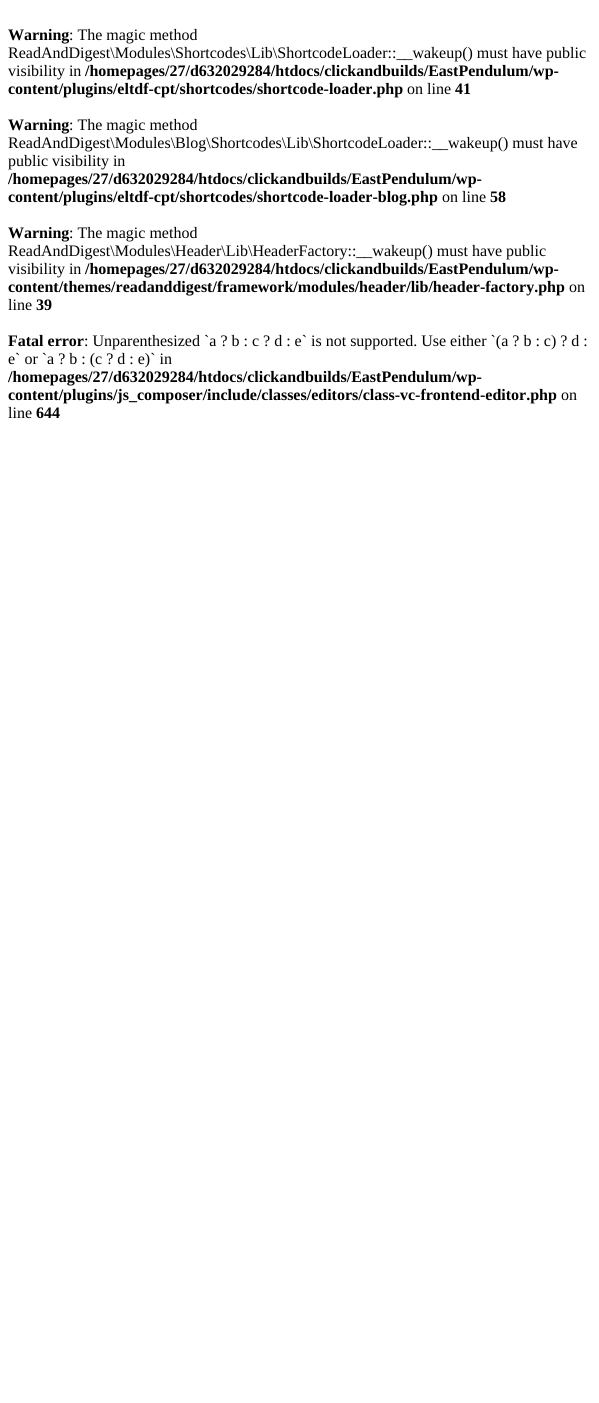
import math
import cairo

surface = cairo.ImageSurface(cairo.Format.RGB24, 599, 1403)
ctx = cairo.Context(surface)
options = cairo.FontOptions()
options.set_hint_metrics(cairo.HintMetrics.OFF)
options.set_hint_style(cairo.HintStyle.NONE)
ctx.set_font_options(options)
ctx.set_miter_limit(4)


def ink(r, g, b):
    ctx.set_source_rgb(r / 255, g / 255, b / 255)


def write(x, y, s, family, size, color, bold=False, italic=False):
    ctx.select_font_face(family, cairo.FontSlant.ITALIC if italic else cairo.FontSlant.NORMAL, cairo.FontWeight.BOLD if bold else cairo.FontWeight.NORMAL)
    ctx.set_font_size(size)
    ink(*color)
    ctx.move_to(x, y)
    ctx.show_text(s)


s1 = dict(family="Liberation Serif", size=16, color=(0, 0, 0), bold=True)
s2 = dict(family="Liberation Serif", size=16, color=(0, 0, 0))

ink(255, 255, 255)
ctx.paint()
write(8, 40, "Warning", **s1)
write(69, 40, ": The magic method", **s2)
write(8, 58, "ReadAndDigest\\Modules\\Shortcodes\\Lib\\ShortcodeLoader::__wakeup() must have public", **s2)
write(8, 76, "visibility in", **s2)
write(85, 76, "/homepages/27/d632029284/htdocs/clickandbuilds/EastPendulum/wp-", **s1)
write(8, 94, "content/plugins/eltdf-cpt/shortcodes/shortcode-loader.php", **s1)
write(407, 94, "on line", **s2)
write(455, 94, "41", **s1)
write(8, 130, "Warning", **s1)
write(69, 130, ": The magic method", **s2)
write(8, 148, "ReadAndDigest\\Modules\\Blog\\Shortcodes\\Lib\\ShortcodeLoader::__wakeup() must have", **s2)
write(8, 166, "public visibility in", **s2)
write(8, 184, "/homepages/27/d632029284/htdocs/clickandbuilds/EastPendulum/wp-", **s1)
write(8, 202, "content/plugins/eltdf-cpt/shortcodes/shortcode-loader-blog.php", **s1)
write(442, 202, "on line", **s2)
write(490, 202, "58", **s1)
write(8, 238, "Warning", **s1)
write(69, 238, ": The magic method", **s2)
write(8, 256, "ReadAndDigest\\Modules\\Header\\Lib\\HeaderFactory::__wakeup() must have public", **s2)
write(8, 274, "visibility in", **s2)
write(85, 274, "/homepages/27/d632029284/htdocs/clickandbuilds/EastPendulum/wp-", **s1)
write(8, 292, "content/themes/readanddigest/framework/modules/header/lib/header-factory.php", **s1)
write(569, 292, "on", **s2)
write(8, 310, "line", **s2)
write(36, 310, "39", **s1)
write(8, 346, "Fatal error", **s1)
write(84, 346, ": Unparenthesized `a ? b : c ? d : e` is not supported. Use either `(a ? b : c) ? d :", **s2)
write(8, 364, "e` or `a ? b : (c ? d : e)` in", **s2)
write(8, 382, "/homepages/27/d632029284/htdocs/clickandbuilds/EastPendulum/wp-", **s1)
write(8, 400, "content/plugins/js_composer/include/classes/editors/class-vc-frontend-editor.php", **s1)
write(561, 400, "on", **s2)
write(8, 418, "line", **s2)
write(36, 418, "644", **s1)
surface.write_to_png("screenshot.png")
